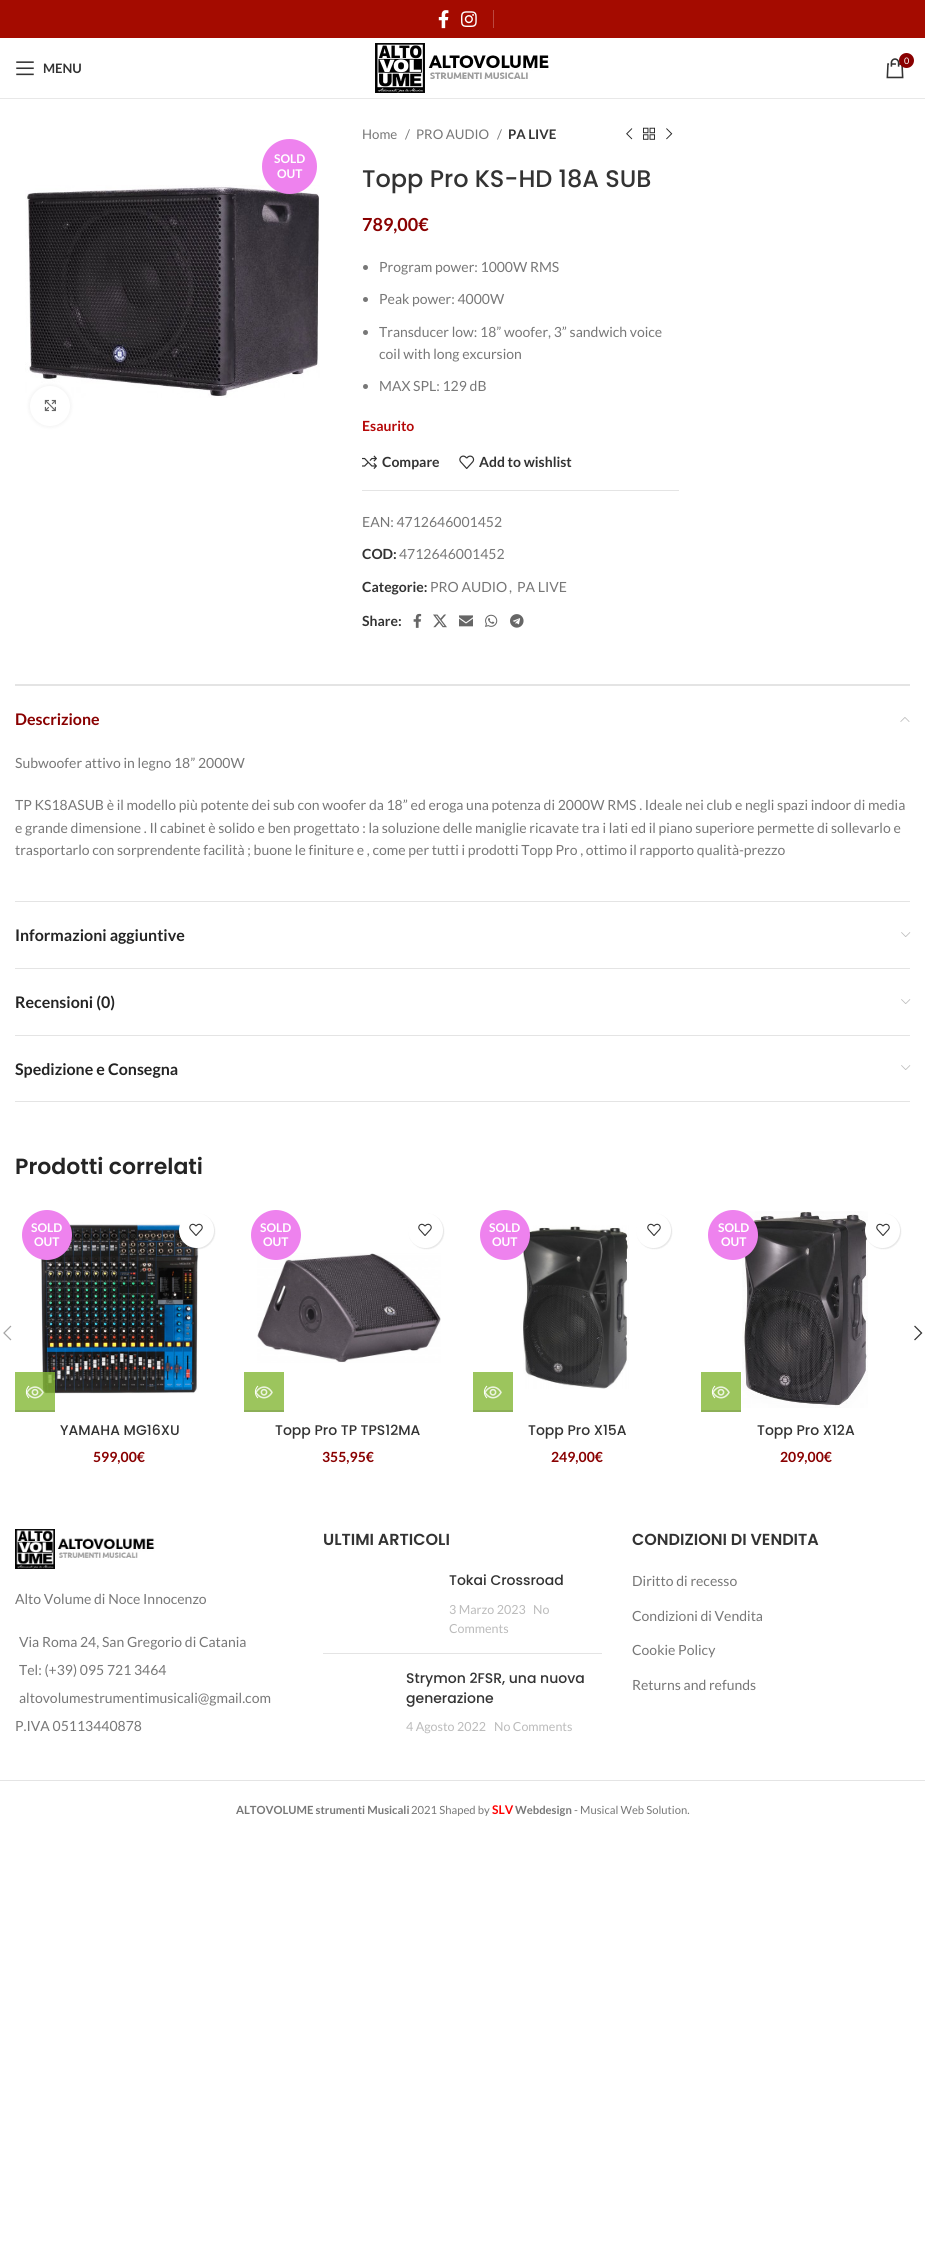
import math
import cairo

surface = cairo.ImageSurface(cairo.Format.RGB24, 925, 2264)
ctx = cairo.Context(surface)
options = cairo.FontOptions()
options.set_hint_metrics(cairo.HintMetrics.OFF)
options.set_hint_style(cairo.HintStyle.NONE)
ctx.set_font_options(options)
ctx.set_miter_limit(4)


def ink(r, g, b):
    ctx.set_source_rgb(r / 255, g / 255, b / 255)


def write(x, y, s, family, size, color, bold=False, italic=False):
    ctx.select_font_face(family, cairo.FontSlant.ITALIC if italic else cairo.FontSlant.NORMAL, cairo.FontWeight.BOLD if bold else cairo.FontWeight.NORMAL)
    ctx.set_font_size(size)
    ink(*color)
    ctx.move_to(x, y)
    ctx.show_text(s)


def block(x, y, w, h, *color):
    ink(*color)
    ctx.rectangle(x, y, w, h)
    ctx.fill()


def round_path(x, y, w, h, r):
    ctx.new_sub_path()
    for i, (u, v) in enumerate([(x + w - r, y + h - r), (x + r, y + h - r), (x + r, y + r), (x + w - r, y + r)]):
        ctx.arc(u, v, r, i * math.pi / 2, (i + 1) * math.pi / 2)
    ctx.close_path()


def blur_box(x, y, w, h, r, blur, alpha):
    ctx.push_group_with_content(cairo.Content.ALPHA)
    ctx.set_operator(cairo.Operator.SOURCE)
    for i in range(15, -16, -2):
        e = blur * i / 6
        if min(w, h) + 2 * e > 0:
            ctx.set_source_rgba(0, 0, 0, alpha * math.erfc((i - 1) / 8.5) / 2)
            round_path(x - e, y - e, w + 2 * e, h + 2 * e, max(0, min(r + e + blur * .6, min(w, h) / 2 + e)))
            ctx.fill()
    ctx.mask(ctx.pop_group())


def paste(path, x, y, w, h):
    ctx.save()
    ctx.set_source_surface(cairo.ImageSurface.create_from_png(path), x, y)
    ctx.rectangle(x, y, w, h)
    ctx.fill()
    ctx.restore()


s1 = dict(family="Lato", size=9, color=(255, 255, 255))
s2 = dict(family="Lato", size=13, color=(51, 51, 51), bold=True)
s3 = dict(family="Lato", size=12, color=(255, 255, 255), bold=True)
s4 = dict(family="Lato", size=13.25, color=(119, 119, 119))
s5 = dict(family="Lato", size=13.25, color=(51, 51, 51), bold=True)
s6 = dict(family="Poppins Medium", size=24, color=(51, 51, 51))
s7 = dict(family="Lato", size=18, color=(137, 0, 0), bold=True)
s8 = dict(family="Lato", size=14, color=(119, 119, 119))
s9 = dict(family="Lato", size=14, color=(181, 8, 8), bold=True)
s10 = dict(family="Lato", size=14, color=(51, 51, 51), bold=True)
s11 = dict(family="Lato", size=16, color=(137, 0, 0), bold=True)
s12 = dict(family="Lato", size=16, color=(36, 36, 36), bold=True)
s13 = dict(family="Poppins SemiBold", size=22, color=(36, 36, 36))
s14 = dict(family="Poppins Medium", size=14, color=(51, 51, 51))
s15 = dict(family="Lato", size=14, color=(137, 0, 0), bold=True)
s16 = dict(family="Poppins SemiBold", size=16, color=(51, 51, 51))
s17 = dict(family="Lato", size=12.5, color=(187, 187, 187))
s18 = dict(family="Lato", size=11.25, color=(119, 119, 119), bold=True)
s19 = dict(family="Lato", size=11.25, color=(119, 119, 119))
s20 = dict(family="Lato", size=12, color=(255, 0, 0), bold=True)

ink(255, 255, 255)
ctx.paint()
block(0, 0, 925, 38, 164, 11, 0)
paste("pic1.png", 438, 10, 11, 19)
paste("pic2.png", 461, 11, 16, 16)
block(493, 10, 1, 18, 187, 72, 64)
block(0, 98, 925, 1, 232, 232, 232)
paste("pic3.png", 375, 43, 174, 50)
paste("pic4.png", 886, 58, 18, 21)
ink(137, 0, 0)
ctx.arc(906.5, 60.5, 7.5, 0, 2 * math.pi)
ctx.fill()
write(904, 64, "0", **s1)
paste("pic5.png", 16, 61, 18, 15)
write(43, 73, "MENU", **s2)
paste("pic6.png", 25, 185, 295, 213)
ink(238, 130, 238)
ctx.arc(289.5, 166.5, 27.5, 0, 2 * math.pi)
ctx.fill()
write(274, 163, "SOLD", **s3)
write(277, 178, "OUT", **s3)
ink(0, 0, 0)
blur_box(30, 386, 40, 40, 20, 2.5, 0.08)
ink(255, 255, 255)
ctx.arc(50, 406, 20, 0, 2 * math.pi)
ctx.fill()
paste("pic7.png", 44, 399, 12, 13)
write(362, 139, "Home", **s4)
write(405, 139, "/", **s4)
write(416, 139, "PRO AUDIO", **s4)
write(497, 139, "/", **s4)
write(508, 139, "PA LIVE", **s5)
paste("pic8.png", 626, 128, 7, 12)
paste("pic9.png", 643, 127, 12, 13)
paste("pic10.png", 666, 128, 7, 12)
write(362, 187, "Topp Pro KS-HD 18A SUB", **s6)
write(362, 231, "789,00€", **s7)
ink(119, 119, 119)
ctx.new_path()
ctx.arc(365.5, 267.5, 2.5, 0, 2 * math.pi)
ctx.fill()
write(379, 272, "Program power: 1000W RMS", **s8)
ctx.new_path()
ctx.arc(365.5, 299.5, 2.5, 0, 2 * math.pi)
ctx.fill()
write(379, 304, "Peak power: 4000W", **s8)
ctx.new_path()
ctx.arc(365.5, 332.5, 2.5, 0, 2 * math.pi)
ctx.fill()
write(379, 337, "Transducer low: 18” woofer, 3” sandwich voice", **s8)
write(379, 359, "coil with long excursion", **s8)
ctx.new_path()
ctx.arc(365.5, 386.5, 2.5, 0, 2 * math.pi)
ctx.fill()
write(379, 391, "MAX SPL: 129 dB", **s8)
write(362, 431, "Esaurito", **s9)
paste("pic11.png", 362, 455, 15, 14)
write(382, 467, "Compare", **s10)
paste("pic12.png", 459, 455, 16, 14)
write(479, 467, "Add to wishlist", **s10)
block(362, 490, 317, 1, 228, 228, 228)
write(362, 527, "EAN: 4712646001452", **s8)
write(362, 559, "COD:", **s10)
write(399, 559, "4712646001452", **s8)
write(362, 592, "Categorie:", **s10)
write(430, 592, "PRO AUDIO", **s8)
write(509, 592, ",", **s8)
write(517, 592, "PA LIVE", **s8)
write(362, 626, "Share:", **s10)
paste("pic13.png", 413, 613, 9, 15)
paste("pic14.png", 433, 614, 14, 14)
paste("pic15.png", 459, 615, 14, 12)
paste("pic16.png", 485, 614, 13, 13)
paste("pic17.png", 510, 614, 14, 14)
block(15, 684, 895, 2, 228, 228, 228)
block(15, 901, 895, 1, 228, 228, 228)
write(15, 725, "Descrizione", **s11)
paste("pic18.png", 900, 717, 10, 5)
write(15, 768, "Subwoofer attivo in legno 18” 2000W", **s8)
write(15, 810, "TP KS18ASUB è il modello più potente dei sub con woofer da 18” ed eroga una potenza di 2000W RMS . Ideale nei club e negli spazi indoor di media", **s8)
write(15, 833, "e grande dimensione . Il cabinet è solido e ben progettato : la soluzione delle maniglie ricavate tra i lati ed il piano superiore permette di sollevarlo e", **s8)
write(15, 855, "trasportarlo con sorprendente facilità ; buone le finiture e , come per tutti i prodotti Topp Pro , ottimo il rapporto qualità-prezzo", **s8)
block(15, 968, 895, 1, 228, 228, 228)
write(15, 941, "Informazioni aggiuntive", **s12)
paste("pic19.png", 901, 932, 10, 5)
block(15, 1035, 895, 1, 228, 228, 228)
write(15, 1008, "Recensioni (0)", **s12)
paste("pic19.png", 901, 999, 10, 5)
block(15, 1101, 895, 1, 228, 228, 228)
write(15, 1075, "Spedizione e Consegna", **s12)
paste("pic19.png", 901, 1065, 10, 5)
write(15, 1174, "Prodotti correlati", **s13)
paste("pic20.png", 40, 1222, 159, 172)
ink(238, 130, 238)
ctx.arc(47, 1235, 25, 0, 2 * math.pi)
ctx.fill()
write(31, 1232, "SOLD", **s3)
write(34, 1246, "OUT", **s3)
ink(0, 0, 0)
blur_box(180, 1214, 35, 35, 17.5, 0.5, 0.1)
ink(255, 255, 255)
ctx.arc(196.5, 1230.5, 17.5, 0, 2 * math.pi)
ctx.fill()
paste("pic21.png", 189, 1223, 14, 13)
ctx.set_source_rgba(0.514, 0.718, 0.208, 0.8)
ctx.rectangle(15, 1372, 40, 38)
ctx.fill()
block(15, 1410, 40, 2, 140, 175, 87)
paste("pic22.png", 26, 1386, 18, 13)
ctx.new_path()
ctx.move_to(29, 1398)
ctx.curve_to(25.5, 1394.5, 25.5, 1389.5, 29, 1386)
ink(255, 255, 255)
ctx.set_line_width(1)
ctx.stroke()
write(60, 1435, "YAMAHA MG16XU", **s14)
write(93, 1462, "599,00€", **s15)
paste("pic23.png", 257, 1253, 184, 110)
ink(238, 130, 238)
ctx.arc(276, 1235, 25, 0, 2 * math.pi)
ctx.fill()
write(260, 1232, "SOLD", **s3)
write(263, 1246, "OUT", **s3)
ink(0, 0, 0)
blur_box(409, 1214, 35, 35, 17.5, 0.5, 0.1)
ink(255, 255, 255)
ctx.arc(425.5, 1230.5, 17.5, 0, 2 * math.pi)
ctx.fill()
paste("pic21.png", 418, 1223, 14, 13)
block(244, 1372, 40, 38, 156, 197, 93)
block(244, 1410, 40, 2, 140, 175, 87)
paste("pic24.png", 255, 1386, 18, 13)
ctx.new_path()
ctx.move_to(258, 1398)
ctx.curve_to(254.5, 1394.5, 254.5, 1389.5, 258, 1386)
ink(255, 255, 255)
ctx.stroke()
write(275, 1435, "Topp Pro TP TPS12MA", **s14)
write(322, 1462, "355,95€", **s15)
paste("pic25.png", 523, 1225, 106, 164)
ink(238, 130, 238)
ctx.arc(505, 1235, 25, 0, 2 * math.pi)
ctx.fill()
write(489, 1232, "SOLD", **s3)
write(492, 1246, "OUT", **s3)
ink(0, 0, 0)
blur_box(637, 1214, 35, 35, 17.5, 0.5, 0.1)
ink(255, 255, 255)
ctx.arc(653.5, 1230.5, 17.5, 0, 2 * math.pi)
ctx.fill()
paste("pic21.png", 647, 1223, 14, 13)
block(473, 1372, 40, 38, 156, 197, 93)
block(473, 1410, 40, 2, 140, 175, 87)
paste("pic24.png", 484, 1386, 18, 13)
ctx.new_path()
ctx.move_to(487, 1398)
ctx.curve_to(483.5, 1394.5, 483.5, 1389.5, 487, 1386)
ink(255, 255, 255)
ctx.stroke()
write(528, 1435, "Topp Pro X15A", **s14)
write(551, 1462, "249,00€", **s15)
paste("pic26.png", 742, 1211, 126, 197)
ink(238, 130, 238)
ctx.arc(733, 1235, 25, 0, 2 * math.pi)
ctx.fill()
write(718, 1232, "SOLD", **s3)
write(721, 1246, "OUT", **s3)
ink(0, 0, 0)
blur_box(866, 1214, 35, 35, 17.5, 0.5, 0.1)
ink(255, 255, 255)
ctx.arc(882.5, 1230.5, 17.5, 0, 2 * math.pi)
ctx.fill()
paste("pic21.png", 876, 1223, 14, 13)
block(701, 1372, 40, 38, 156, 197, 93)
block(701, 1410, 40, 2, 140, 175, 87)
paste("pic24.png", 712, 1386, 18, 13)
ctx.new_path()
ctx.move_to(715, 1398)
ctx.curve_to(711.5, 1394.5, 711.5, 1389.5, 715, 1386)
ink(255, 255, 255)
ctx.stroke()
write(757, 1435, "Topp Pro X12A", **s14)
write(780, 1462, "209,00€", **s15)
paste("pic27.png", 3, 1325, 9, 16)
paste("pic28.png", 914, 1325, 9, 16)
paste("pic29.png", 15, 1529, 140, 40)
write(15, 1604, "Alto Volume di Noce Innocenzo", **s8)
write(19, 1647, "Via Roma 24, San Gregorio di Catania", **s8)
write(19, 1675, "Tel: (+39) 095 721 3464", **s8)
write(19, 1703, "altovolumestrumentimusicali@gmail.com", **s8)
write(15, 1731, "P.IVA 05113440878", **s8)
write(323, 1545, "ULTIMI ARTICOLI", **s16)
block(323, 1653, 279, 1, 228, 228, 228)
write(449, 1585, "Tokai Crossroad", **s14)
write(449, 1614, "3 Marzo 2023", **s17)
write(533, 1614, "No", **s17)
write(449, 1633, "Comments", **s17)
write(406, 1683, "Strymon 2FSR, una nuova", **s14)
write(406, 1703, "generazione", **s14)
write(406, 1731, "4 Agosto 2022", **s17)
write(494, 1731, "No Comments", **s17)
write(632, 1545, "CONDIZIONI DI VENDITA", **s16)
write(632, 1586, "Diritto di recesso", **s8)
write(632, 1621, "Condizioni di Vendita", **s8)
write(632, 1655, "Cookie Policy", **s8)
write(632, 1690, "Returns and refunds", **s8)
block(0, 1780, 925, 1, 228, 228, 228)
write(236, 1814, "ALTOVOLUME strumenti Musicali", **s18)
write(411, 1814, "2021 Shaped by", **s19)
write(492, 1814, "SLV", **s20)
write(515, 1814, "Webdesign", **s18)
write(574, 1814, "- Musical Web Solution.", **s19)
surface.write_to_png("screenshot.png")
